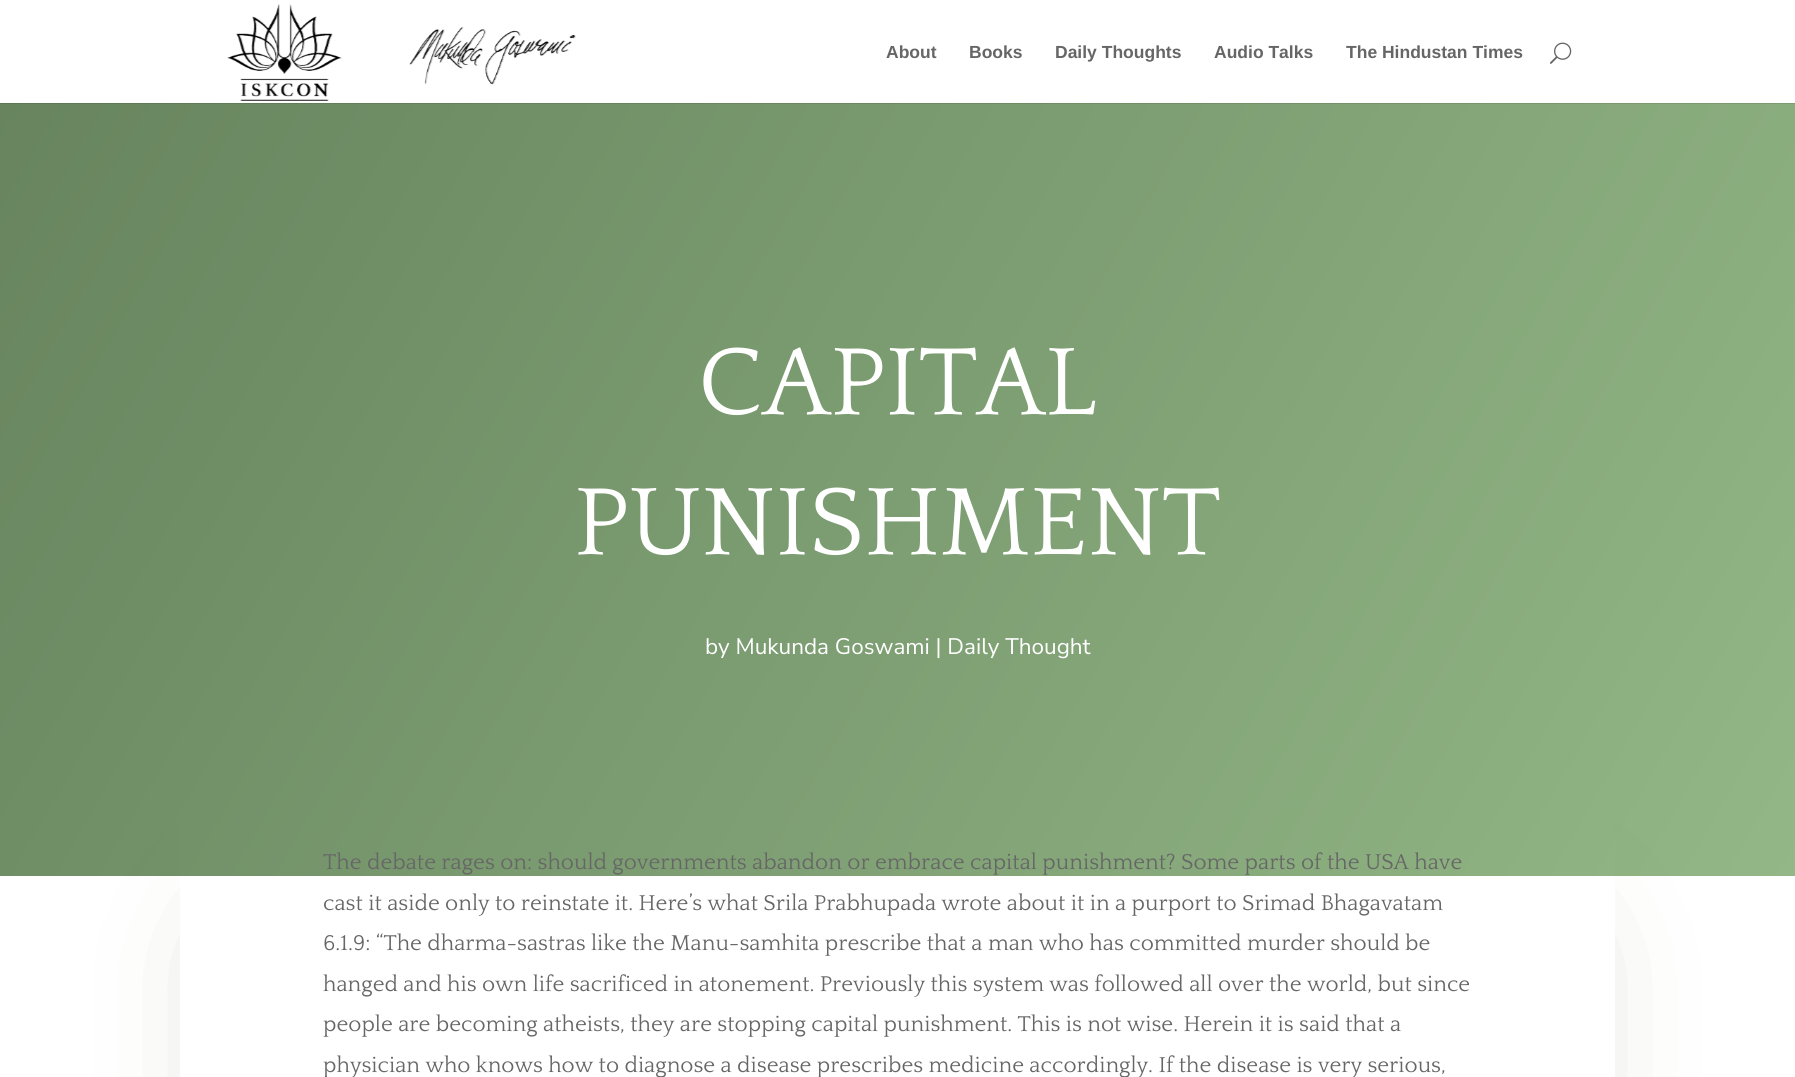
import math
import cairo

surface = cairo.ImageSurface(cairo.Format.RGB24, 1795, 1077)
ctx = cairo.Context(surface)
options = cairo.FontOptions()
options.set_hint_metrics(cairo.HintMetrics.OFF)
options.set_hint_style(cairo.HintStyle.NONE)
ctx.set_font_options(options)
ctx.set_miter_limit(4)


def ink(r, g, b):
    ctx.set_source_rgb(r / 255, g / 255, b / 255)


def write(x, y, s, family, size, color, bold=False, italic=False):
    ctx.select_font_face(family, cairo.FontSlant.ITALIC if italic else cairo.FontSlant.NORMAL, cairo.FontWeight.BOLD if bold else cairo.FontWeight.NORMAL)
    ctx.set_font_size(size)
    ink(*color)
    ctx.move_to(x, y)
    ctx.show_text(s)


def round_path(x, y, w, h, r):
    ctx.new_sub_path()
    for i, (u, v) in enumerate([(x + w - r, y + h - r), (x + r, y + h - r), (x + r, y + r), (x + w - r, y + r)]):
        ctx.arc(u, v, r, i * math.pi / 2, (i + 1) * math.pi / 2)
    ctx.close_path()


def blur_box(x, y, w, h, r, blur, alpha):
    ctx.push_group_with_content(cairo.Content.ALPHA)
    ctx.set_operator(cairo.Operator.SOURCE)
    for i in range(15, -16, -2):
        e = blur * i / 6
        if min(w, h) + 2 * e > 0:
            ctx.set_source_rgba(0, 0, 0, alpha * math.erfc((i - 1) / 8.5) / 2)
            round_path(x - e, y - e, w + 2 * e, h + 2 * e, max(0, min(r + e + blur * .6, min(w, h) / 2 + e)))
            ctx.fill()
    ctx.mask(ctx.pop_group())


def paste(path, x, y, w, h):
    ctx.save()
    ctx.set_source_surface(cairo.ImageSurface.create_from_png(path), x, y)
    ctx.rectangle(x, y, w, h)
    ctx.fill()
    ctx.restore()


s1 = dict(family="Liberation Sans", size=17.5, color=(102, 102, 102), bold=True)
s2 = dict(family="Quattrocento", size=100, color=(255, 255, 255))
s3 = dict(family="Nunito Sans ExtraLight", size=22.5, color=(255, 255, 255))
s4 = dict(family="Quattrocento", size=22.5, color=(102, 102, 102))

ink(255, 255, 255)
ctx.paint()
paste("pic1.png", 227, 4, 349, 97)
write(886, 58, "About", **s1)
write(969, 58, "Books", **s1)
write(1055, 58, "Daily Thoughts", **s1)
write(1214, 58, "Audio Talks", **s1)
write(1346, 58, "The Hindustan Times", **s1)
paste("pic2.png", 1550, 42, 22, 22)
gradient = cairo.LinearGradient(57, 4, 1738, 975)
gradient.add_color_stop_rgba(0, 0.404, 0.518, 0.369, 1)
gradient.add_color_stop_rgba(1, 0.576, 0.718, 0.525, 1)
ctx.set_source(gradient)
ctx.rectangle(0, 104, 1795, 772)
ctx.fill()
gradient = cairo.LinearGradient(57, 4, 1738, 975)
gradient.add_color_stop_rgba(0, 0.365, 0.467, 0.333, 1)
gradient.add_color_stop_rgba(1, 0.518, 0.647, 0.475, 1)
ctx.set_source(gradient)
ctx.rectangle(0, 103, 1795, 1)
ctx.fill()
write(698, 414, "CAPITAL", **s2)
write(574, 554, "PUNISHMENT", **s2)
write(705, 654, "by Mukunda Goswami | Daily Thought", **s3)
ctx.save()
ctx.set_fill_rule(cairo.FillRule.EVEN_ODD)
ctx.new_path()
ctx.move_to(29, 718)
ctx.line_to(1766, 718)
ctx.line_to(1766, 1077)
ctx.line_to(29, 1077)
ctx.close_path()
ctx.move_to(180, 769)
ctx.line_to(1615, 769)
ctx.line_to(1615, 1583)
ctx.line_to(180, 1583)
ctx.close_path()
ctx.clip()
ink(63, 63, 31)
blur_box(255, 944, 1285, 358, 0, 75, 0.3)
ctx.restore()
write(323, 869, "The debate rages on: should governments abandon or embrace capital punishment? Some parts of the USA have", **s4)
write(323, 910, "cast it aside only to reinstate it. Here’s what Srila Prabhupada wrote about it in a purport to Srimad Bhagavatam", **s4)
write(323, 950, "6.1.9: “The dharma-sastras like the Manu-samhita prescribe that a man who has committed murder should be", **s4)
write(323, 991, "hanged and his own life sacrificed in atonement. Previously this system was followed all over the world, but since", **s4)
write(323, 1031, "people are becoming atheists, they are stopping capital punishment. This is not wise. Herein it is said that a", **s4)
write(323, 1072, "physician who knows how to diagnose a disease prescribes medicine accordingly. If the disease is very serious,", **s4)
surface.write_to_png("screenshot.png")
